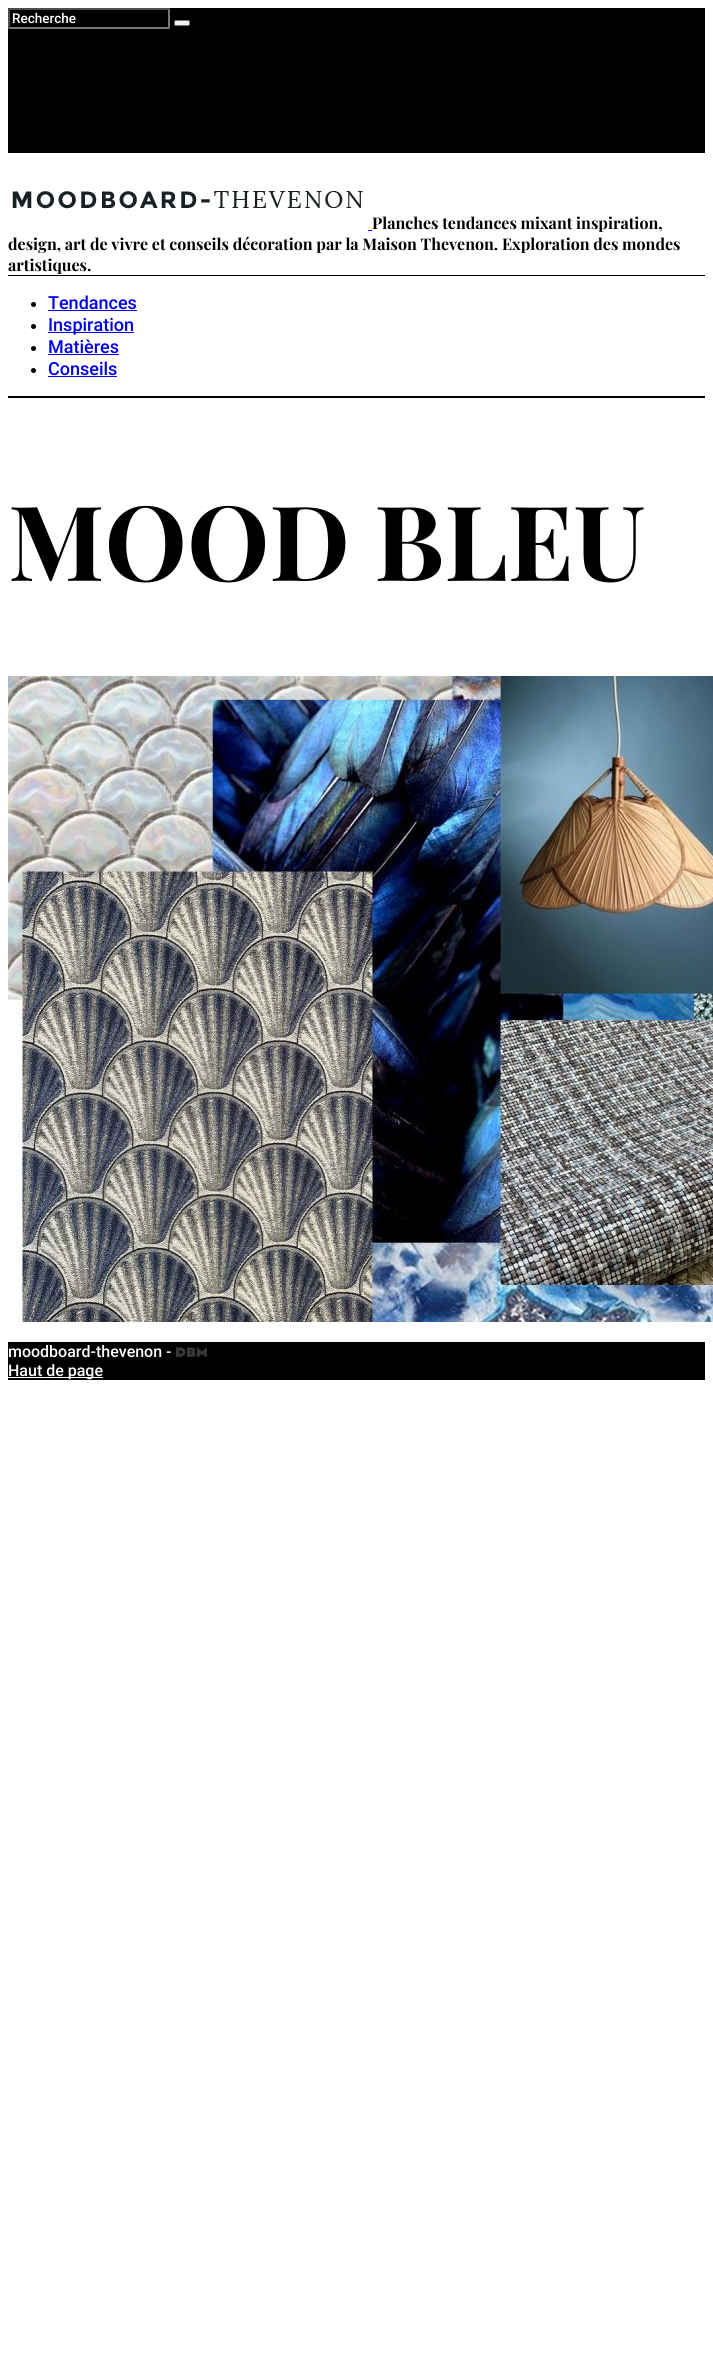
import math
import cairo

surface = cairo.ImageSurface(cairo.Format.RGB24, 713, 2369)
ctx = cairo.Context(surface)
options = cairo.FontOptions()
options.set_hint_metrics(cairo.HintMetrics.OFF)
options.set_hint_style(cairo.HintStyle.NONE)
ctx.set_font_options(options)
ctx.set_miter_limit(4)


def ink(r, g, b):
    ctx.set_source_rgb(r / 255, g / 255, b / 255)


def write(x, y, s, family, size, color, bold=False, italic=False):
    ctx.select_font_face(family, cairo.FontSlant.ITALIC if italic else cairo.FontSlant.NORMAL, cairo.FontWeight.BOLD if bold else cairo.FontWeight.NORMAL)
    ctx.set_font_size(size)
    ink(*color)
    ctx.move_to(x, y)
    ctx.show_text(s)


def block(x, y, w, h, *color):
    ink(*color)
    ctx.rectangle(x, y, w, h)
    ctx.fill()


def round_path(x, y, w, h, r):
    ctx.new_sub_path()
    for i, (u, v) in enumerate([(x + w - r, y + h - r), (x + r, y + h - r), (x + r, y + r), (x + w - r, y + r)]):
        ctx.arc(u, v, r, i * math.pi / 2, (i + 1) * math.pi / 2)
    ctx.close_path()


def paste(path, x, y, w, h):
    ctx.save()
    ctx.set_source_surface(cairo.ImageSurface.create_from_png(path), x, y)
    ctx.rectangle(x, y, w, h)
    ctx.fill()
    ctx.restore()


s1 = dict(family="Roboto Medium", size=13.5, color=(255, 255, 255))
s2 = dict(family="Playfair Display", size=16, color=(0, 0, 0), bold=True)
s3 = dict(family="Roboto Medium", size=18, color=(0, 0, 238))
s4 = dict(family="Playfair Display", size=104, color=(0, 0, 0), bold=True)
s5 = dict(family="Roboto Medium", size=16, color=(255, 255, 255))

ink(255, 255, 255)
ctx.paint()
block(8, 8, 697, 145, 0, 0, 0)
ink(79, 79, 79)
ctx.new_path()
ctx.move_to(8, 8)
ctx.line_to(170, 8)
ctx.line_to(168, 10)
ctx.line_to(10, 10)
ctx.close_path()
ctx.fill()
ink(118, 118, 118)
ctx.new_path()
ctx.move_to(170, 8)
ctx.line_to(170, 29)
ctx.line_to(168, 27)
ctx.line_to(168, 10)
ctx.close_path()
ctx.fill()
ctx.new_path()
ctx.move_to(170, 29)
ctx.line_to(8, 29)
ctx.line_to(10, 27)
ctx.line_to(168, 27)
ctx.close_path()
ctx.fill()
ink(79, 79, 79)
ctx.new_path()
ctx.move_to(8, 29)
ctx.line_to(8, 8)
ctx.line_to(10, 10)
ctx.line_to(10, 27)
ctx.close_path()
ctx.fill()
write(12, 23, "Recherche", **s1)
ink(239, 239, 239)
round_path(174.5, 20.5, 15, 5, 1.5)
ctx.fill_preserve()
ink(118, 118, 118)
ctx.set_line_width(1)
ctx.stroke()
paste("pic1.png", 12, 191, 351, 18)
block(368, 230, 4, 1, 0, 0, 238)
write(372, 229, "Planches tendances mixant inspiration,", **s2)
write(8, 250, "design, art de vivre et conseils décoration par la Maison Thevenon. Exploration des mondes", **s2)
write(8, 271, "artistiques.", **s2)
block(8, 275, 697, 1, 0, 0, 0)
block(8, 396, 697, 2, 0, 0, 0)
ctx.new_path()
ctx.arc(33.5, 304.5, 2.5, 0, 2 * math.pi)
ctx.fill()
write(48, 309, "Tendances", **s3)
block(48, 310, 89, 1, 0, 0, 238)
ink(0, 0, 0)
ctx.new_path()
ctx.arc(33.5, 326.5, 2.5, 0, 2 * math.pi)
ctx.fill()
block(48, 332, 86, 1, 0, 0, 238)
write(48, 331, "Inspiration", **s3)
ink(0, 0, 0)
ctx.new_path()
ctx.arc(33.5, 348.5, 2.5, 0, 2 * math.pi)
ctx.fill()
write(48, 353, "Matières", **s3)
block(48, 354, 71, 1, 0, 0, 238)
ink(0, 0, 0)
ctx.new_path()
ctx.arc(33.5, 370.5, 2.5, 0, 2 * math.pi)
ctx.fill()
write(48, 375, "Conseils", **s3)
block(48, 376, 69, 1, 0, 0, 238)
write(8, 581, "MOOD BLEU", **s4)
paste("pic2.png", 8, 676, 705, 646)
block(8, 1342, 697, 38, 0, 0, 0)
write(8, 1357, "moodboard-thevenon -", **s5)
paste("pic3.png", 176, 1347, 31, 10)
block(8, 1377, 95, 1, 255, 255, 255)
write(8, 1376, "Haut de page", **s5)
surface.write_to_png("screenshot.png")
